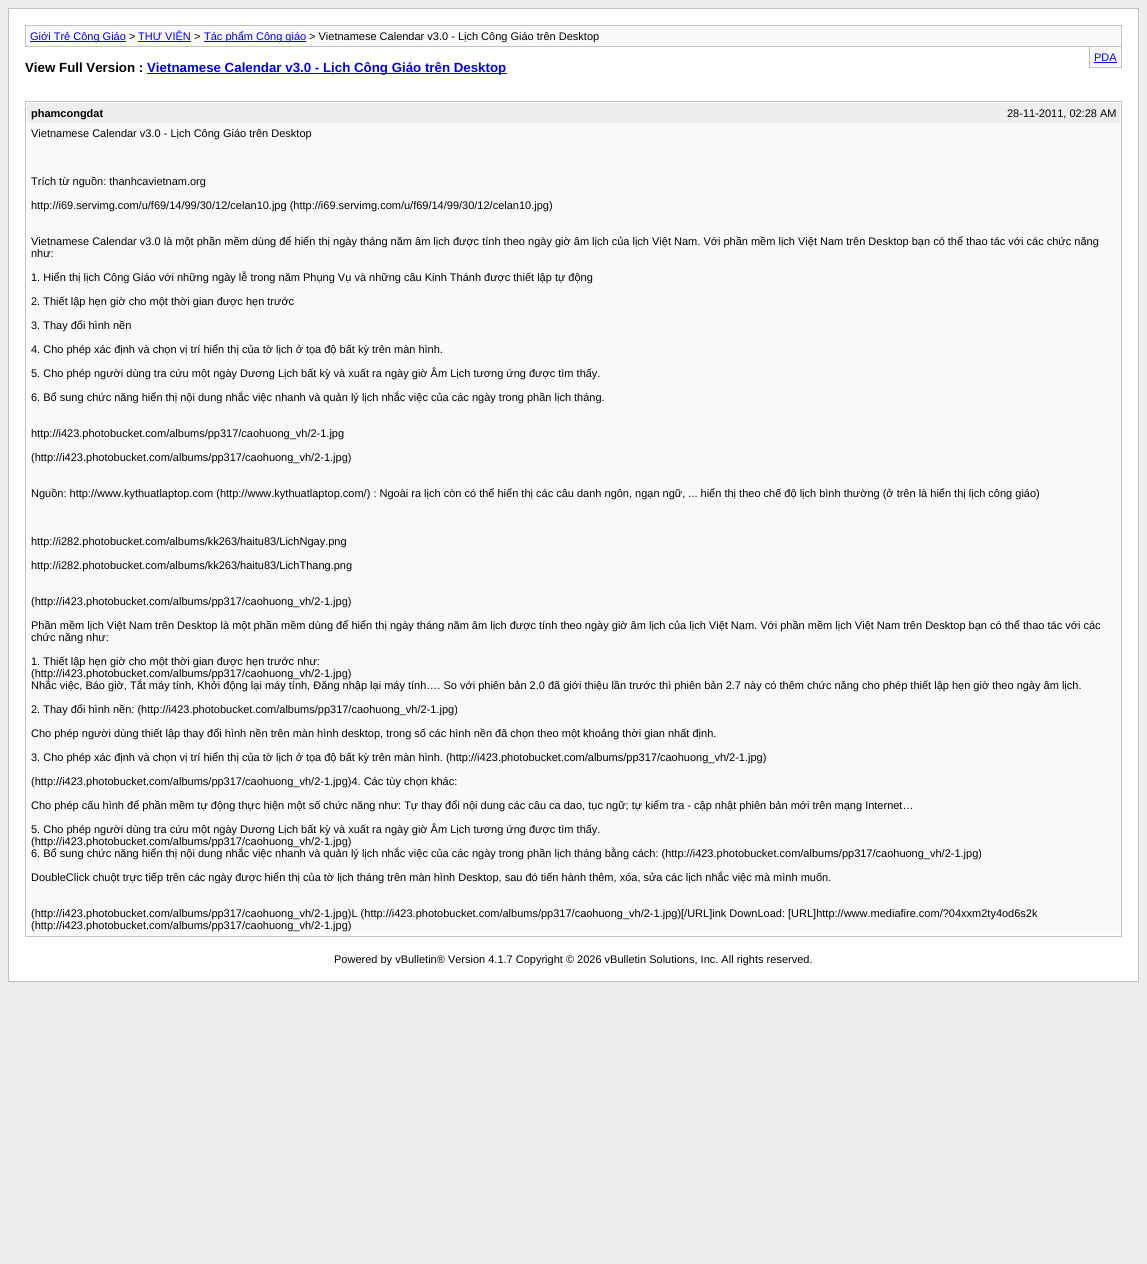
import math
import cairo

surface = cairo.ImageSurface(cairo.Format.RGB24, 1147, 1264)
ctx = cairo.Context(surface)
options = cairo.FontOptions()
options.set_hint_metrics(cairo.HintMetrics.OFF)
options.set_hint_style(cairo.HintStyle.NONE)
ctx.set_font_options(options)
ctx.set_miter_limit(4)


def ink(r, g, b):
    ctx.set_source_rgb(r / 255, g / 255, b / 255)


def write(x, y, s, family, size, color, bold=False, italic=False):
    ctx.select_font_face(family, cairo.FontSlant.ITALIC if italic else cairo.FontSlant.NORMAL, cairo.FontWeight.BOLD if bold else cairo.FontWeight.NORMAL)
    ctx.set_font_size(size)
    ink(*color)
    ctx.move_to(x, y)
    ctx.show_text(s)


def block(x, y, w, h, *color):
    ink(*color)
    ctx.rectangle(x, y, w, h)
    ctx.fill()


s1 = dict(family="Liberation Sans", size=11, color=(0, 0, 238))
s2 = dict(family="Liberation Sans", size=11, color=(0, 0, 0))
s3 = dict(family="Liberation Sans", size=13.3, color=(0, 0, 0), bold=True)
s4 = dict(family="Liberation Sans", size=13.3, color=(0, 0, 238), bold=True)
s5 = dict(family="Liberation Sans", size=11, color=(0, 0, 0), bold=True)

ink(238, 238, 238)
ctx.paint()
ink(255, 255, 255)
ctx.rectangle(8.5, 8.5, 1130, 973)
ctx.fill_preserve()
ink(192, 192, 192)
ctx.set_line_width(1)
ctx.stroke()
ink(249, 249, 249)
ctx.rectangle(25.5, 25.5, 1096, 21)
ctx.fill_preserve()
ink(192, 192, 192)
ctx.stroke()
block(30, 41, 96, 1, 0, 0, 238)
write(30, 40, "Giới Trẻ Công Giáo", **s1)
write(129, 40, ">", **s2)
block(138, 41, 53, 1, 0, 0, 238)
write(138, 40, "THƯ VIỆN", **s1)
write(194, 40, ">", **s2)
block(204, 41, 102, 1, 0, 0, 238)
write(204, 40, "Tác phẩm Công giáo", **s1)
write(309, 40, "> Vietnamese Calendar v3.0 - Lịch Công Giáo trên Desktop", **s2)
block(1090, 47, 31, 20, 249, 249, 249)
block(1121, 47, 1, 21, 192, 192, 192)
block(1089, 67, 33, 1, 192, 192, 192)
block(1089, 47, 1, 21, 192, 192, 192)
write(1094, 61, "PDA", **s1)
block(1094, 62, 23, 1, 0, 0, 238)
write(25, 72, "View Full Version :", **s3)
block(147, 73, 360, 1, 0, 0, 238)
write(147, 72, "Vietnamese Calendar v3.0 - Lịch Công Giáo trên Desktop", **s4)
ctx.rectangle(25.5, 101.5, 1096, 835)
ink(192, 192, 192)
ctx.stroke()
block(27, 103, 1093, 20, 238, 238, 238)
write(31, 117, "phamcongdat", **s5)
write(1007, 117, "28-11-2011, 02:28 AM", **s2)
block(27, 123, 1093, 812, 249, 249, 249)
write(31, 137, "Vietnamese Calendar v3.0 - Lịch Công Giáo trên Desktop", **s2)
write(31, 185, "Trích từ nguồn: thanhcavietnam.org", **s2)
write(31, 209, "http://i69.servimg.com/u/f69/14/99/30/12/celan10.jpg (http://i69.servimg.com/u/f69/14/99/30/12/celan10.jpg)", **s2)
write(31, 245, "Vietnamese Calendar v3.0 là một phần mềm dùng để hiển thị ngày tháng năm âm lịch được tính theo ngày giờ âm lịch của lịch Việt Nam. Với phần mềm lịch Việt Nam trên Desktop bạn có thể thao tác với các chức năng", **s2)
write(31, 257, "như:", **s2)
write(31, 281, "1. Hiển thị lịch Công Giáo với những ngày lễ trong năm Phụng Vụ và những câu Kinh Thánh được thiết lập tự động", **s2)
write(31, 305, "2. Thiết lập hẹn giờ cho một thời gian được hẹn trước", **s2)
write(31, 329, "3. Thay đổi hình nền", **s2)
write(31, 353, "4. Cho phép xác định và chọn vị trí hiển thị của tờ lịch ở tọa độ bất kỳ trên màn hình.", **s2)
write(31, 377, "5. Cho phép người dùng tra cứu một ngày Dương Lịch bất kỳ và xuất ra ngày giờ Âm Lịch tương ứng được tìm thấy.", **s2)
write(31, 401, "6. Bổ sung chức năng hiển thị nội dung nhắc việc nhanh và quản lý lịch nhắc việc của các ngày trong phần lịch tháng.", **s2)
write(31, 437, "http://i423.photobucket.com/albums/pp317/caohuong_vh/2-1.jpg", **s2)
write(31, 461, "(http://i423.photobucket.com/albums/pp317/caohuong_vh/2-1.jpg)", **s2)
write(31, 497, "Nguồn: http://www.kythuatlaptop.com (http://www.kythuatlaptop.com/) : Ngoài ra lịch còn có thể hiển thị các câu danh ngôn, ngạn ngữ, ... hiển thị theo chế độ lịch bình thường (ở trên là hiển thị lịch công giáo)", **s2)
write(31, 545, "http://i282.photobucket.com/albums/kk263/haitu83/LichNgay.png", **s2)
write(31, 569, "http://i282.photobucket.com/albums/kk263/haitu83/LichThang.png", **s2)
write(31, 605, "(http://i423.photobucket.com/albums/pp317/caohuong_vh/2-1.jpg)", **s2)
write(31, 629, "Phần mềm lịch Việt Nam trên Desktop là một phần mềm dùng để hiển thị ngày tháng năm âm lịch được tính theo ngày giờ âm lịch của lịch Việt Nam. Với phần mềm lịch Việt Nam trên Desktop bạn có thể thao tác với các", **s2)
write(31, 641, "chức năng như:", **s2)
write(31, 665, "1. Thiết lập hẹn giờ cho một thời gian được hẹn trước như:", **s2)
write(31, 677, "(http://i423.photobucket.com/albums/pp317/caohuong_vh/2-1.jpg)", **s2)
write(31, 689, "Nhắc việc, Báo giờ, Tắt máy tính, Khởi động lại máy tính, Đăng nhập lại máy tính…. So với phiên bản 2.0 đã giới thiệu lần trước thì phiên bản 2.7 này có thêm chức năng cho phép thiết lập hẹn giờ theo ngày âm lịch.", **s2)
write(31, 713, "2. Thay đổi hình nền: (http://i423.photobucket.com/albums/pp317/caohuong_vh/2-1.jpg)", **s2)
write(31, 737, "Cho phép người dùng thiết lập thay đổi hình nền trên màn hình desktop, trong số các hình nền đã chọn theo một khoảng thời gian nhất định.", **s2)
write(31, 761, "3. Cho phép xác định và chọn vị trí hiển thị của tờ lịch ở tọa độ bất kỳ trên màn hình. (http://i423.photobucket.com/albums/pp317/caohuong_vh/2-1.jpg)", **s2)
write(31, 785, "(http://i423.photobucket.com/albums/pp317/caohuong_vh/2-1.jpg)4. Các tùy chọn khác:", **s2)
write(31, 809, "Cho phép cấu hình để phần mềm tự động thực hiện một số chức năng như: Tự thay đổi nội dung các câu ca dao, tục ngữ; tự kiểm tra - cập nhật phiên bản mới trên mạng Internet…", **s2)
write(31, 833, "5. Cho phép người dùng tra cứu một ngày Dương Lịch bất kỳ và xuất ra ngày giờ Âm Lịch tương ứng được tìm thấy.", **s2)
write(31, 845, "(http://i423.photobucket.com/albums/pp317/caohuong_vh/2-1.jpg)", **s2)
write(31, 857, "6. Bổ sung chức năng hiển thị nội dung nhắc việc nhanh và quản lý lịch nhắc việc của các ngày trong phần lịch tháng bằng cách: (http://i423.photobucket.com/albums/pp317/caohuong_vh/2-1.jpg)", **s2)
write(31, 881, "DoubleClick chuột trực tiếp trên các ngày được hiển thị của tờ lịch tháng trên màn hình Desktop, sau đó tiến hành thêm, xóa, sửa các lịch nhắc việc mà mình muốn.", **s2)
write(31, 917, "(http://i423.photobucket.com/albums/pp317/caohuong_vh/2-1.jpg)L (http://i423.photobucket.com/albums/pp317/caohuong_vh/2-1.jpg)[/URL]ink DownLoad: [URL]http://www.mediafire.com/?04xxm2ty4od6s2k", **s2)
write(31, 929, "(http://i423.photobucket.com/albums/pp317/caohuong_vh/2-1.jpg)", **s2)
write(334, 963, "Powered by vBulletin® Version 4.1.7 Copyright © 2026 vBulletin Solutions, Inc. All rights reserved.", **s2)
surface.write_to_png("screenshot.png")
